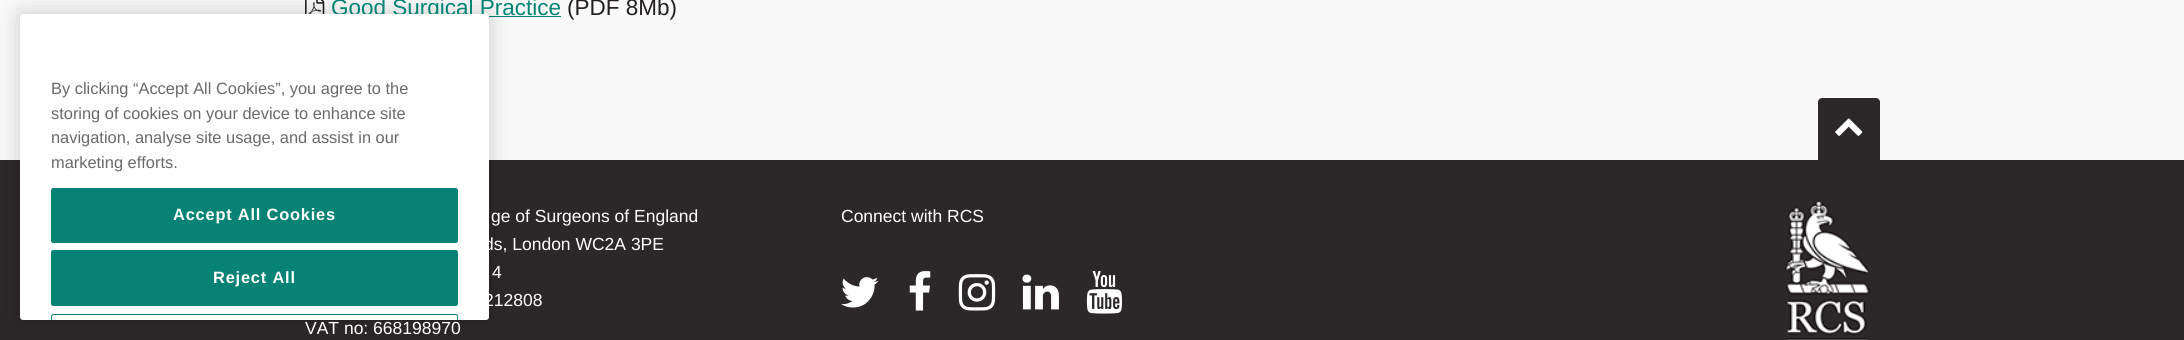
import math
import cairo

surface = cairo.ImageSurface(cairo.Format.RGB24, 2184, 340)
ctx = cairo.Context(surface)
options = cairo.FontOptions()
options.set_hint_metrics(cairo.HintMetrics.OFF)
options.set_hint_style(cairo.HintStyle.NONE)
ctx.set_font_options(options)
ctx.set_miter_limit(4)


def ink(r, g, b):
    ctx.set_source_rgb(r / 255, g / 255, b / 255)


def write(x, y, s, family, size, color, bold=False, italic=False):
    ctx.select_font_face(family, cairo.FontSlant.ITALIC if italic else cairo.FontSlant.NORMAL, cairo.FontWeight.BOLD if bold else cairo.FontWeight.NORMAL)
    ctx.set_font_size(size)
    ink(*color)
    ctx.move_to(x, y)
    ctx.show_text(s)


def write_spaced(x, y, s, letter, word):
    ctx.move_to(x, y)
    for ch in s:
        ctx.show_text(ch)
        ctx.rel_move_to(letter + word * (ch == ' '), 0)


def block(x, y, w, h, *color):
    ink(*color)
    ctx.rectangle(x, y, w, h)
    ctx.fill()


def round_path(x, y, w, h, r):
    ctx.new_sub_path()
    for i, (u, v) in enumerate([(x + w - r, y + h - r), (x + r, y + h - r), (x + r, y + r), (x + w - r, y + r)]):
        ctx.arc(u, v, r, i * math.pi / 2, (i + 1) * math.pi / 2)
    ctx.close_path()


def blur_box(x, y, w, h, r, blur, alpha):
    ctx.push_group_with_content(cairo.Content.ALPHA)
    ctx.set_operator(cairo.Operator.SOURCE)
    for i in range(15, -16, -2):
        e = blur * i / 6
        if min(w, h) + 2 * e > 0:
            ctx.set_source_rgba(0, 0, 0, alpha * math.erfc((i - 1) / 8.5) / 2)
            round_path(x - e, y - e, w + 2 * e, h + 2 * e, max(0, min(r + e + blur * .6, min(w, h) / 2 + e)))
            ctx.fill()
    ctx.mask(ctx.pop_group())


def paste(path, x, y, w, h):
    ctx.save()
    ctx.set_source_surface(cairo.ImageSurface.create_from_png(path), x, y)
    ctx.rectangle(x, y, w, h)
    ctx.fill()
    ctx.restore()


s1 = dict(family="Liberation Sans", size=22.5, color=(2, 132, 115))
s2 = dict(family="Liberation Sans", size=16.4, color=(105, 105, 105))
s3 = dict(family="Liberation Sans", size=22.5, color=(35, 31, 32))
s4 = dict(family="Liberation Sans", size=17.5, color=(255, 255, 255))

ink(249, 249, 249)
ctx.paint()
paste("pic1.png", 305, 0, 20, 14)
block(488, 16, 73, 1, 2, 132, 115)
block(0, 160, 2184, 180, 44, 40, 41)
ink(0, 0, 0)
blur_box(20, 14, 469, 306, 3, 11, 0.2)
write(331, 15, "Good Surgical Practice", **s1)
ink(255, 255, 255)
round_path(20, 14, 469, 306, 3)
ctx.fill()
write(51, 94, "By clicking “Accept All Cookies”, you agree to the", **s2)
write(51, 119, "storing of cookies on your device to enhance site", **s2)
write(51, 143, "navigation, analyse site usage, and assist in our", **s2)
write(51, 168, "marketing efforts.", **s2)
ink(6, 131, 117)
round_path(51.5, 188.5, 406, 54, 2)
ctx.fill_preserve()
ctx.set_line_width(1)
ctx.stroke()
ctx.select_font_face("Liberation Sans", cairo.FontSlant.NORMAL, cairo.FontWeight.BOLD)
ink(255, 255, 255)
write_spaced(173, 220, "Accept All Cookies", 0.8, 0)
ink(6, 131, 117)
round_path(51.5, 250.5, 406, 55, 2)
ctx.fill_preserve()
ctx.stroke()
ink(255, 255, 255)
write_spaced(213, 283, "Reject All", 0.8, 0)
ink(6, 131, 117)
ctx.new_path()
ctx.move_to(54, 314)
ctx.curve_to(50, 314, 51, 318, 51, 320)
ctx.line_to(52, 320)
ctx.curve_to(52, 319, 51, 315, 54, 315)
ctx.line_to(456, 315)
ctx.curve_to(458, 315, 457, 319, 457, 320)
ctx.line_to(458, 320)
ctx.curve_to(458, 318, 459, 314, 456, 314)
ctx.close_path()
ctx.fill()
write(567, 15, "(PDF 8Mb)", **s3)
ink(44, 40, 41)
ctx.new_path()
ctx.move_to(1822, 98)
ctx.line_to(1876, 98)
ctx.curve_to(1878, 98, 1880, 100, 1880, 102)
ctx.line_to(1880, 160)
ctx.line_to(1818, 160)
ctx.line_to(1818, 102)
ctx.curve_to(1818, 100, 1820, 98, 1822, 98)
ctx.close_path()
ctx.fill()
paste("pic2.png", 1835, 118, 28, 18)
write(491, 222, "ge of Surgeons of England", **s4)
write(484, 250, "ds, London WC2A 3PE", **s4)
write(492, 278, "4", **s4)
write(484, 306, "212808", **s4)
write(305, 334, "VAT no: 668198970", **s4)
write(841, 222, "Connect with RCS", **s4)
paste("pic3.png", 841, 277, 38, 31)
paste("pic4.png", 909, 271, 22, 40)
paste("pic5.png", 958, 274, 38, 37)
paste("pic6.png", 1022, 274, 37, 36)
paste("pic7.png", 1086, 271, 37, 43)
paste("pic8.png", 1785, 202, 85, 138)
surface.write_to_png("screenshot.png")
